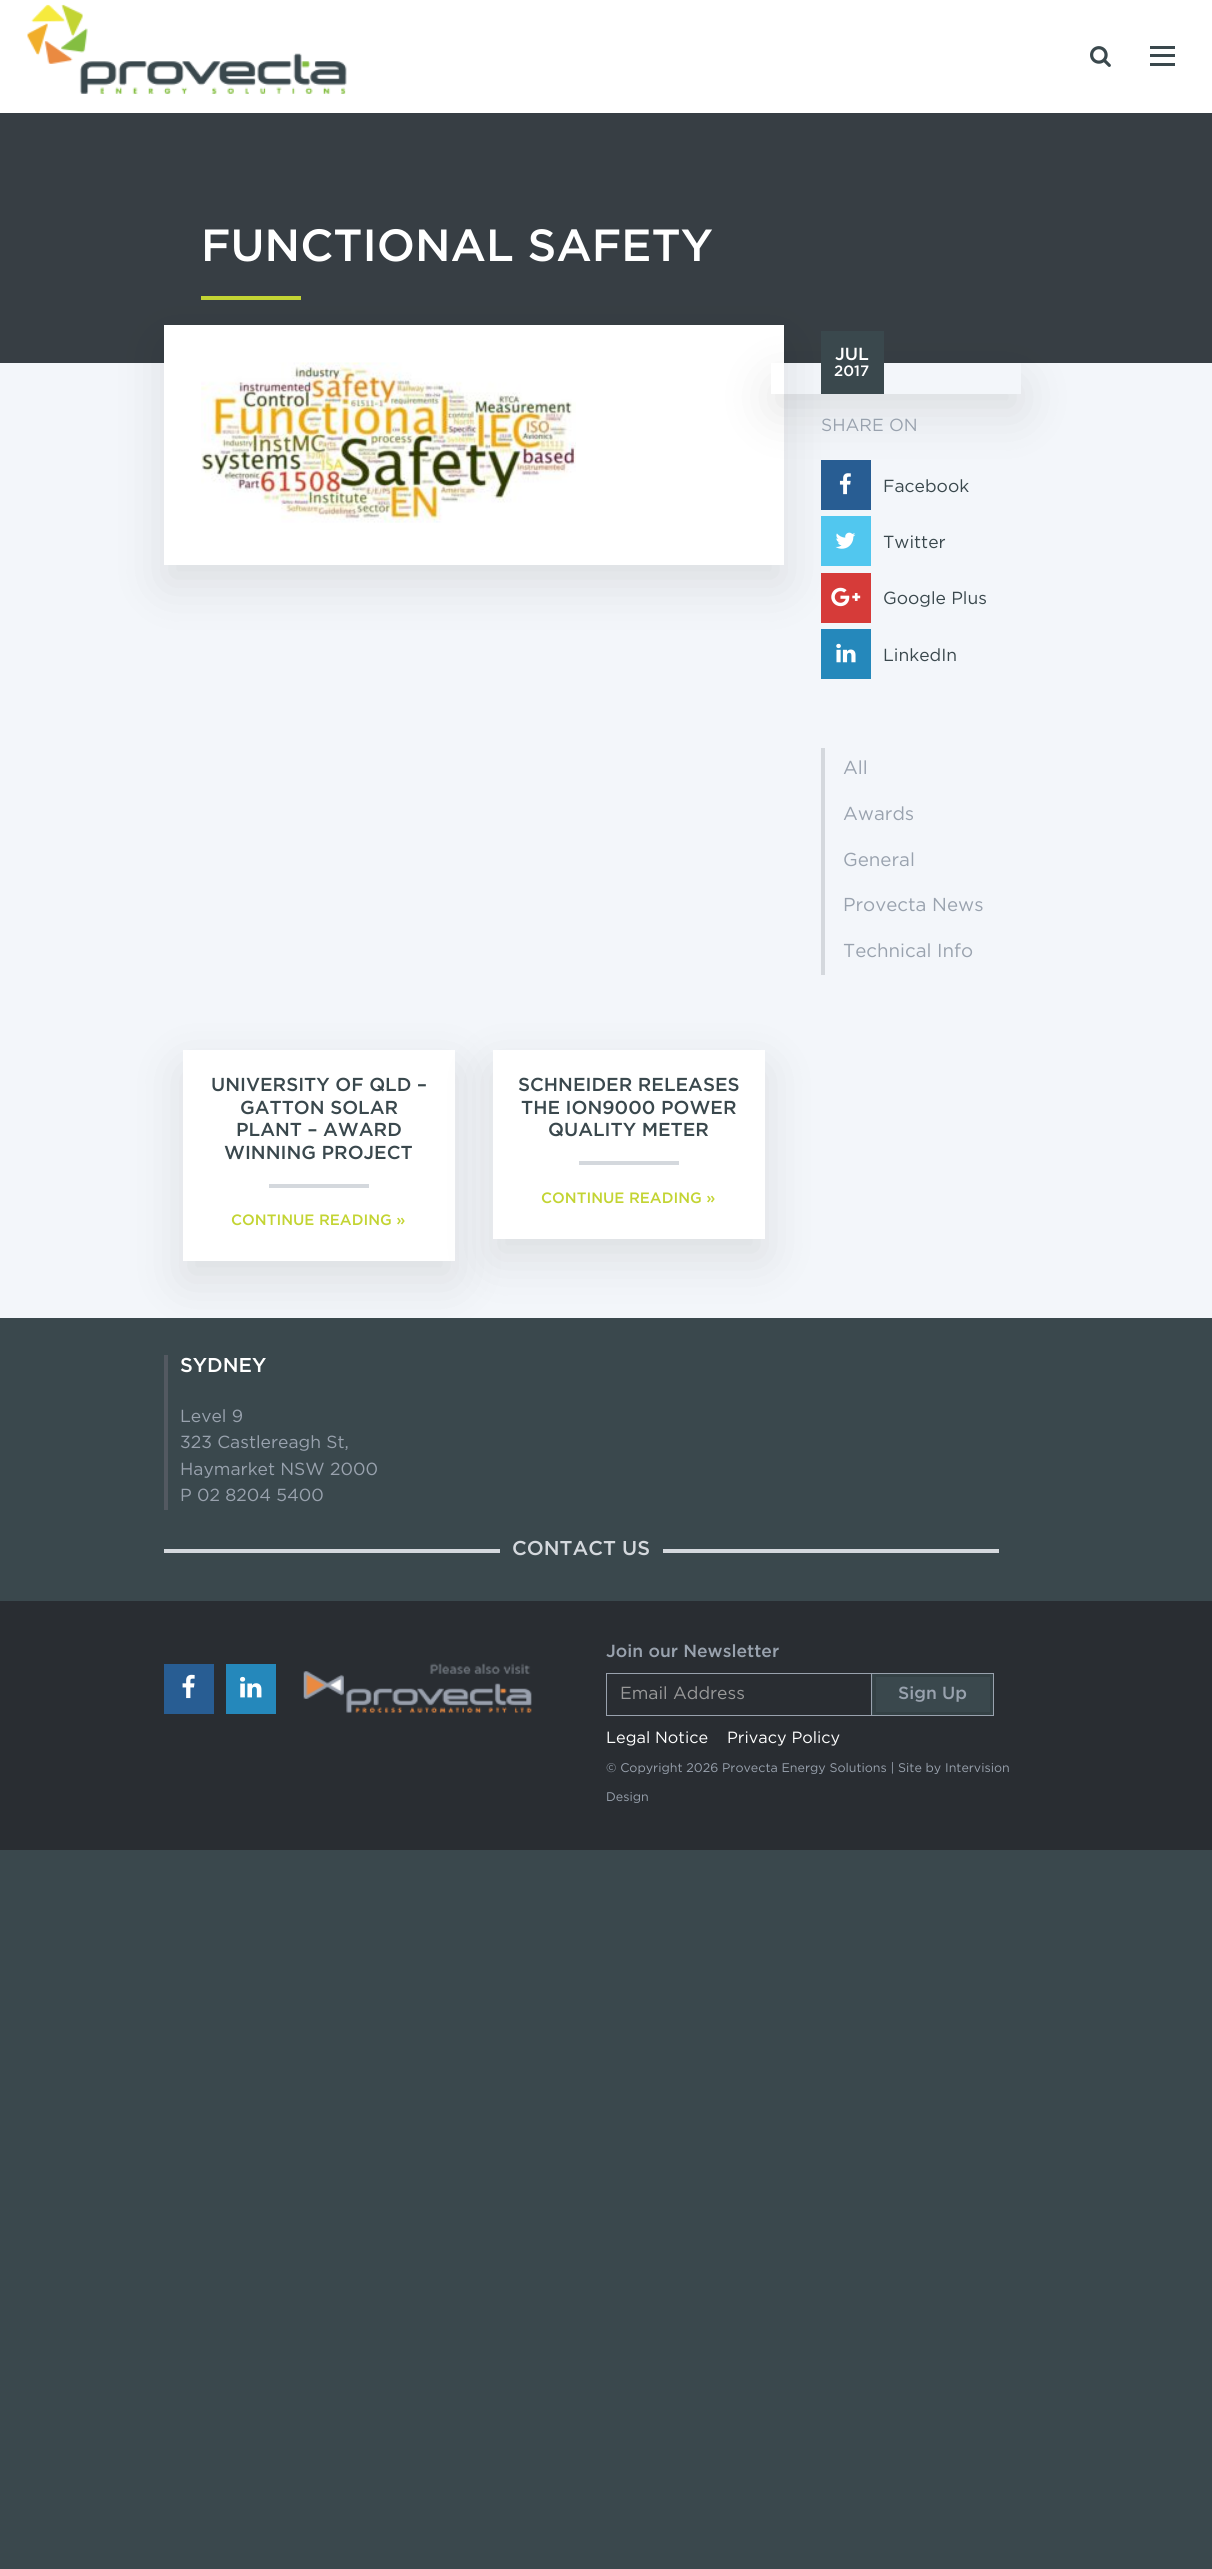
import math
import cairo

surface = cairo.ImageSurface(cairo.Format.RGB24, 1212, 2569)
ctx = cairo.Context(surface)
options = cairo.FontOptions()
options.set_hint_metrics(cairo.HintMetrics.OFF)
options.set_hint_style(cairo.HintStyle.NONE)
ctx.set_font_options(options)
ctx.set_miter_limit(4)


def ink(r, g, b):
    ctx.set_source_rgb(r / 255, g / 255, b / 255)


def write(x, y, s, family, size, color, bold=False, italic=False):
    ctx.select_font_face(family, cairo.FontSlant.ITALIC if italic else cairo.FontSlant.NORMAL, cairo.FontWeight.BOLD if bold else cairo.FontWeight.NORMAL)
    ctx.set_font_size(size)
    ink(*color)
    ctx.move_to(x, y)
    ctx.show_text(s)


def block(x, y, w, h, *color):
    ink(*color)
    ctx.rectangle(x, y, w, h)
    ctx.fill()


def round_path(x, y, w, h, r):
    ctx.new_sub_path()
    for i, (u, v) in enumerate([(x + w - r, y + h - r), (x + r, y + h - r), (x + r, y + r), (x + w - r, y + r)]):
        ctx.arc(u, v, r, i * math.pi / 2, (i + 1) * math.pi / 2)
    ctx.close_path()


def blur_box(x, y, w, h, r, blur, alpha):
    ctx.push_group_with_content(cairo.Content.ALPHA)
    ctx.set_operator(cairo.Operator.SOURCE)
    for i in range(15, -16, -2):
        e = blur * i / 6
        if min(w, h) + 2 * e > 0:
            ctx.set_source_rgba(0, 0, 0, alpha * math.erfc((i - 1) / 8.5) / 2)
            round_path(x - e, y - e, w + 2 * e, h + 2 * e, max(0, min(r + e + blur * .6, min(w, h) / 2 + e)))
            ctx.fill()
    ctx.mask(ctx.pop_group())


def paste(path, x, y, w, h):
    ctx.save()
    ctx.set_source_surface(cairo.ImageSurface.create_from_png(path), x, y)
    ctx.rectangle(x, y, w, h)
    ctx.fill()
    ctx.restore()


s1 = dict(family="Gotham Medium", size=45, color=(255, 255, 255))
s2 = dict(family="Gotham Medium", size=17.5, color=(255, 255, 255))
s3 = dict(family="Gotham Medium", size=15, color=(255, 255, 255))
s4 = dict(family="Gotham", size=17.5, color=(153, 162, 174))
s5 = dict(family="Gotham", size=17.5, color=(58, 72, 77))
s6 = dict(family="Gotham", size=18.75, color=(153, 162, 174))
s7 = dict(family="Gotham Medium", size=18.75, color=(58, 72, 77))
s8 = dict(family="Gotham Medium", size=15, color=(195, 212, 51))
s9 = dict(family="Gotham Medium", size=20, color=(255, 255, 255))
s10 = dict(family="Gotham Medium", size=20, color=(212, 216, 221))
s11 = dict(family="Gotham Medium", size=17.5, color=(153, 162, 174))
s12 = dict(family="Gotham", size=17.5, color=(153, 153, 153))
s13 = dict(family="Gotham", size=16.25, color=(255, 255, 255))
s14 = dict(family="Gotham", size=12.5, color=(153, 162, 174))

ink(58, 72, 77)
ctx.paint()
block(0, 0, 1212, 113, 255, 255, 255)
paste("pic1.png", 27, 4, 320, 90)
paste("pic2.png", 1090, 46, 21, 21)
block(1150, 46, 25, 3, 58, 72, 77)
block(1150, 54, 25, 3, 58, 72, 77)
block(1150, 63, 25, 3, 58, 72, 77)
block(0, 113, 1212, 250, 55, 62, 68)
write(201, 261, "FUNCTIONAL SAFETY", **s1)
block(201, 296, 100, 4, 195, 212, 51)
block(0, 363, 1212, 955, 243, 246, 250)
block(821, 460, 50, 50, 40, 93, 147)
paste("pic4.png", 839, 473, 12, 22)
block(821, 516, 50, 50, 81, 199, 239)
paste("pic5.png", 835, 532, 21, 17)
block(821, 573, 50, 50, 214, 59, 57)
paste("pic6.png", 831, 587, 30, 20)
block(821, 629, 50, 50, 37, 136, 187)
paste("pic7.png", 836, 643, 20, 20)
ink(0, 0, 0)
blur_box(164, 344, 620, 240, 0, 25, 0.1)
block(164, 325, 620, 240, 255, 255, 255)
paste("pic3.png", 201, 362, 375, 161)
ctx.save()
ctx.set_fill_rule(cairo.FillRule.EVEN_ODD)
ctx.new_path()
ctx.move_to(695, 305)
ctx.line_to(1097, 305)
ctx.line_to(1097, 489)
ctx.line_to(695, 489)
ctx.close_path()
ctx.move_to(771, 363)
ctx.line_to(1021, 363)
ctx.line_to(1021, 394)
ctx.line_to(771, 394)
ctx.close_path()
ctx.clip()
ink(0, 0, 0)
blur_box(771, 381, 250, 32, 0, 25, 0.1)
ctx.restore()
block(821, 331, 63, 63, 58, 72, 77)
write(835, 360, "JUL", **s2)
write(834, 376, "2017", **s3)
write(821, 431, "SHARE ON", **s4)
write(883, 492, "Facebook", **s5)
write(883, 548, "Twitter", **s5)
write(883, 604, "Google Plus", **s5)
write(883, 661, "LinkedIn", **s5)
block(821, 748, 4, 227, 212, 216, 221)
write(843, 774, "All", **s6)
write(843, 820, "Awards", **s6)
write(843, 866, "General", **s6)
write(843, 911, "Provecta News", **s6)
write(843, 957, "Technical Info", **s6)
block(164, 1355, 4, 155, 83, 89, 97)
ink(0, 0, 0)
blur_box(183, 1069, 272, 211, 0, 25, 0.1)
block(183, 1050, 272, 211, 255, 255, 255)
write(211, 1091, "UNIVERSITY OF QLD –", **s7)
write(240, 1114, "GATTON SOLAR", **s7)
write(236, 1136, "PLANT – AWARD", **s7)
write(224, 1159, "WINNING PROJECT", **s7)
block(269, 1184, 100, 4, 212, 216, 221)
write(231, 1225, "CONTINUE READING »", **s8)
ink(0, 0, 0)
blur_box(493, 1069, 272, 189, 0, 25, 0.1)
block(493, 1050, 272, 189, 255, 255, 255)
write(518, 1091, "SCHNEIDER RELEASES", **s7)
write(521, 1114, "THE ION9000 POWER", **s7)
write(548, 1136, "QUALITY METER", **s7)
block(579, 1161, 100, 4, 212, 216, 221)
write(541, 1203, "CONTINUE READING »", **s8)
write(180, 1372, "SYDNEY", **s9)
write(180, 1422, "Level 9", **s4)
write(180, 1448, "323 Castlereagh St,", **s4)
write(180, 1475, "Haymarket NSW 2000", **s4)
write(180, 1501, "P 02 8204 5400", **s4)
block(164, 1549, 835, 4, 212, 216, 221)
block(500, 1549, 163, 4, 58, 72, 77)
write(512, 1555, "CONTACT US", **s10)
block(0, 1601, 1212, 249, 41, 45, 50)
block(164, 1664, 50, 50, 40, 93, 147)
paste("pic8.png", 182, 1674, 13, 25)
block(226, 1664, 50, 50, 37, 136, 187)
paste("pic9.png", 240, 1676, 22, 22)
paste("pic10.png", 303, 1663, 229, 50)
write(606, 1657, "Join our Newsletter", **s11)
block(606, 1673, 265, 1, 153, 162, 174)
block(606, 1715, 265, 1, 153, 162, 174)
block(606, 1673, 1, 43, 153, 162, 174)
write(620, 1699, "Email Address", **s12)
block(872, 1674, 118, 41, 58, 72, 77)
ctx.rectangle(874.5, 1675.5, 117, 38)
ink(52, 65, 69)
ctx.set_line_width(3)
ctx.stroke()
ctx.rectangle(871.5, 1673.5, 122, 42)
ink(153, 162, 174)
ctx.set_line_width(1)
ctx.stroke()
write(898, 1699, "Sign Up", **s11)
write(606, 1743, "Legal Notice", **s13)
write(727, 1743, "Privacy Policy", **s13)
write(606, 1772, "© Copyright 2026 Provecta Energy Solutions | Site by Intervision", **s14)
write(606, 1801, "Design", **s14)
surface.write_to_png("screenshot.png")
